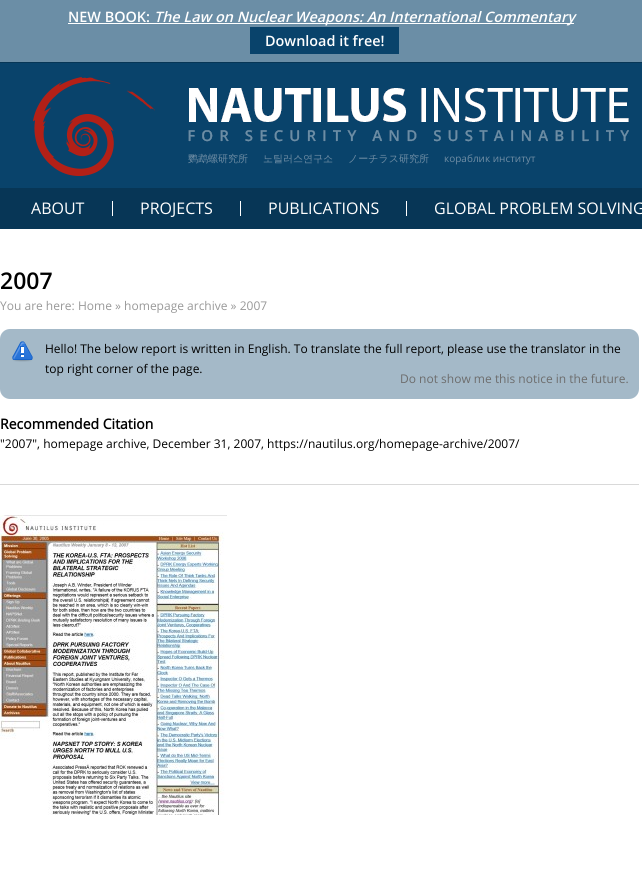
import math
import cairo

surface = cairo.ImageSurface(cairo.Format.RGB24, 642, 875)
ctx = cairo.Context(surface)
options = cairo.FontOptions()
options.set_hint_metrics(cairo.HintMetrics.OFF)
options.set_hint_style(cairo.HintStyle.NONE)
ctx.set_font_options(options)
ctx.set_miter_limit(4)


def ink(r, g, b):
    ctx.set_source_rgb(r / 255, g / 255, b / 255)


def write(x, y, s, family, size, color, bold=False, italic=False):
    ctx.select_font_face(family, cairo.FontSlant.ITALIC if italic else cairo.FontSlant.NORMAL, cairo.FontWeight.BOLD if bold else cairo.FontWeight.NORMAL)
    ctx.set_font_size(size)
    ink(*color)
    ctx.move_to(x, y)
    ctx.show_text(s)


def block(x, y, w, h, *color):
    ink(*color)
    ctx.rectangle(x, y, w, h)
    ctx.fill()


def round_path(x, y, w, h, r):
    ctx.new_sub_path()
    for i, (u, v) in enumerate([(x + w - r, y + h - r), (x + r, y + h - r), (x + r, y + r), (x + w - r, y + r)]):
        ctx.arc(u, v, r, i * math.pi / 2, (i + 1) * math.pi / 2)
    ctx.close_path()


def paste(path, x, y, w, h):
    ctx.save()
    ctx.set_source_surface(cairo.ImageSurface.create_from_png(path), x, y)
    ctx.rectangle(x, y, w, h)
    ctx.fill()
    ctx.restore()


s1 = dict(family="Open Sans SemiBold", size=14.4, color=(255, 255, 255))
s2 = dict(family="Open Sans SemiBold", size=14.4, color=(255, 255, 255), italic=True)
s3 = dict(family="WenQuanYi Zen Hei Medium", size=10, color=(111, 141, 164))
s4 = dict(family="Open Sans", size=10, color=(111, 141, 164))
s5 = dict(family="Open Sans", size=16, color=(255, 255, 255))
s6 = dict(family="Open Sans SemiBold", size=23, color=(0, 0, 0))
s7 = dict(family="Open Sans", size=12, color=(153, 153, 153))
s8 = dict(family="Open Sans", size=12, color=(0, 0, 0))
s9 = dict(family="Open Sans", size=12, color=(109, 109, 109))
s10 = dict(family="Open Sans", size=14, color=(0, 0, 0), bold=True)

ink(9, 67, 107)
ctx.paint()
block(0, 0, 642, 62, 107, 142, 166)
block(0, 62, 642, 1, 7, 54, 86)
write(68, 22, "NEW BOOK:", **s1)
block(68, 23, 506, 1, 255, 255, 255)
write(154, 22, "The Law on Nuclear Weapons: An International Commentary", **s2)
block(250, 27, 149, 27, 9, 67, 107)
write(265, 46, "Download it free!", **s1)
paste("pic1.png", 33, 77, 596, 99)
write(188, 162, "鹦鹉螺研究所", **s3)
write(263, 162, "노틸러스연구소", **s3)
write(348, 162, "ノーチラス研究所", **s3)
write(444, 162, "кораблик институт", **s4)
block(0, 188, 642, 41, 7, 54, 86)
block(112, 201, 1, 15, 255, 255, 255)
write(31, 214, "ABOUT", **s5)
block(240, 201, 1, 15, 255, 255, 255)
write(140, 214, "PROJECTS", **s5)
block(406, 201, 1, 15, 255, 255, 255)
write(268, 214, "PUBLICATIONS", **s5)
write(434, 214, "GLOBAL PROBLEM SOLVING", **s5)
block(0, 229, 642, 646, 255, 255, 255)
write(0, 289, "2007", **s6)
write(0, 310, "You are here: Home » homepage archive » 2007", **s7)
ink(164, 185, 200)
round_path(0, 329, 639, 70, 10)
ctx.fill()
paste("pic2.png", 12, 341, 21, 21)
write(45, 353, "Hello! The below report is written in English. To translate the full report, please use the translator in the", **s8)
write(45, 373, "top right corner of the page.", **s8)
write(400, 383, "Do not show me this notice in the future.", **s9)
write(0, 429, "Recommended Citation", **s10)
write(0, 448, "\"2007\", homepage archive, December 31, 2007, https://nautilus.org/homepage-archive/2007/", **s8)
block(0, 484, 639, 1, 217, 217, 217)
paste("pic3.png", 0, 515, 227, 300)
surface.write_to_png("screenshot.png")
